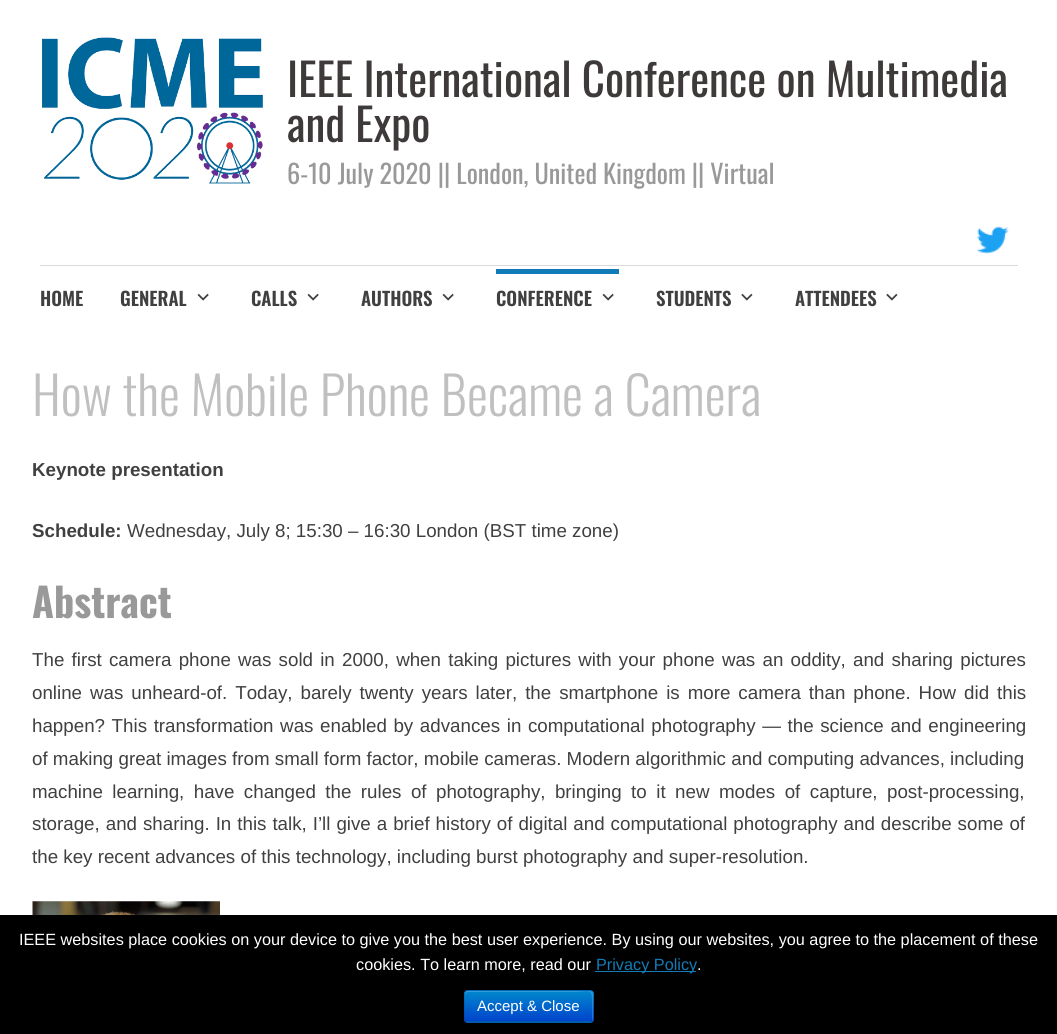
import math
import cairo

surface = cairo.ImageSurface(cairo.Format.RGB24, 1057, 1034)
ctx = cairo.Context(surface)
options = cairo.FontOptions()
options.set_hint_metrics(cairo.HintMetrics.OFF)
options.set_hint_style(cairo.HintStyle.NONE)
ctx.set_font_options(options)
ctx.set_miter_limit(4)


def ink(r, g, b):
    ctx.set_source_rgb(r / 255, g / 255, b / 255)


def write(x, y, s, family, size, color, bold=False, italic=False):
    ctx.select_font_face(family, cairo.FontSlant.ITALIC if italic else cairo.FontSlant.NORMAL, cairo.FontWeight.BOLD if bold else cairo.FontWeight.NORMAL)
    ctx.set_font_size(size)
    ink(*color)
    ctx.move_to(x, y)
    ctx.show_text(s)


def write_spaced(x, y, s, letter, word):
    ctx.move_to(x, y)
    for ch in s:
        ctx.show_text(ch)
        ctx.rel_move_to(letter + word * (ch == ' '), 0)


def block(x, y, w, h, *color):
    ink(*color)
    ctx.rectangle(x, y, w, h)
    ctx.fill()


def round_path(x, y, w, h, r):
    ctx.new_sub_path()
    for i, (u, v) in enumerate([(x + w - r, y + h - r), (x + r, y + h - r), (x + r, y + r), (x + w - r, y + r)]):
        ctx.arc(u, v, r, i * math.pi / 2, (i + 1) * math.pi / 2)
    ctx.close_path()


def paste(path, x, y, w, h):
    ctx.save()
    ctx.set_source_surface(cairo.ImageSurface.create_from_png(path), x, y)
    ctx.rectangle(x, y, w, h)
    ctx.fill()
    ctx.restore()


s1 = dict(family="Oswald", size=45, color=(61, 58, 57))
s2 = dict(family="Oswald", size=26.25, color=(153, 153, 153))
s3 = dict(family="Oswald SemiBold", size=18.75, color=(64, 64, 64))
s4 = dict(family="Oswald Light", size=52.5, color=(192, 192, 192))
s5 = dict(family="Liberation Sans", size=18.75, color=(64, 64, 64), bold=True)
s6 = dict(family="Liberation Sans", size=18.75, color=(64, 64, 64))
s7 = dict(family="Oswald", size=40, color=(153, 153, 153), bold=True)
s8 = dict(family="Liberation Sans", size=16.25, color=(255, 255, 255))
s9 = dict(family="Liberation Sans", size=16.25, color=(17, 123, 184))
s10 = dict(family="Liberation Sans", size=15, color=(255, 255, 255))

ink(255, 255, 255)
ctx.paint()
paste("pic1.png", 42, 37, 221, 147)
write(287, 97, "IEEE International Conference on Multimedia", **s1)
write(287, 142, "and Expo", **s1)
write(287, 184, "6-10 July 2020 || London, United Kingdom || Virtual", **s2)
paste("pic2.png", 976, 226, 33, 28)
block(40, 265, 978, 1, 217, 217, 217)
write(40, 306, "HOME", **s3)
write(120, 306, "GENERAL", **s3)
paste("pic3.png", 197, 293, 12, 8)
write(251, 306, "CALLS", **s3)
paste("pic3.png", 307, 293, 12, 8)
write(361, 306, "AUTHORS", **s3)
paste("pic3.png", 442, 293, 12, 8)
block(496, 269, 123, 5, 17, 123, 184)
write(496, 306, "CONFERENCE", **s3)
paste("pic3.png", 602, 293, 12, 8)
write(656, 306, "STUDENTS", **s3)
paste("pic4.png", 741, 293, 12, 8)
write(795, 306, "ATTENDEES", **s3)
paste("pic4.png", 886, 293, 12, 8)
write(32, 416, "How the Mobile Phone Became a Camera", **s4)
write(32, 476, "Keynote presentation", **s5)
write(32, 537, "Schedule:", **s5)
write(127, 537, "Wednesday, July 8; 15:30 – 16:30 London (BST time zone)", **s6)
write(32, 618, "Abstract", **s7)
ctx.select_font_face("Liberation Sans")
ctx.set_font_size(18.75)
ink(64, 64, 64)
write_spaced(32, 666, "The first camera phone was sold in 2000, when taking pictures with your phone was an oddity, and sharing pictures", 0, 2)
write_spaced(32, 699, "online was unheard-of. Today, barely twenty years later, the smartphone is more camera than phone. How did this", 0, 2.75)
write_spaced(32, 732, "happen? This transformation was enabled by advances in computational photography — the science and engineering", 0, 1.4)
write(32, 765, "of making great images from small form factor, mobile cameras. Modern algorithmic and computing advances, including", **s6)
write_spaced(32, 798, "machine learning, have changed the rules of photography, bringing to it new modes of capture, post-processing,", 0, 4.25)
write_spaced(32, 830, "storage, and sharing. In this talk, I’ll give a brief history of digital and computational photography and describe some of", 0, 0.75)
write(32, 863, "the key recent advances of this technology, including burst photography and super-resolution.", **s6)
paste("pic5.png", 32, 901, 188, 14)
block(0, 915, 1057, 119, 0, 0, 0)
write(19, 945, "IEEE websites place cookies on your device to give you the best user experience. By using our websites, you agree to the placement of these", **s8)
write(356, 970, "cookies. To learn more, read our", **s8)
block(595, 971, 101, 1, 17, 123, 184)
write(596, 970, "Privacy Policy", **s9)
write(697, 970, ".", **s8)
ink(0, 109, 204)
round_path(464, 990, 130, 33, 4)
ctx.fill()
ctx.save()
round_path(464, 990, 130, 33, 4)
ctx.clip()
gradient = cairo.LinearGradient(529, 991, 529, 1021)
gradient.add_color_stop_rgba(0, 0, 0.533, 0.8, 1)
gradient.add_color_stop_rgba(1, 0, 0.267, 0.8, 1)
ctx.set_source(gradient)
ctx.rectangle(464, 991, 130, 30)
ctx.fill()
ctx.restore()
ctx.set_source_rgba(1, 1, 1, 0.2)
ctx.new_path()
ctx.move_to(468, 992)
ctx.line_to(570, 992)
ctx.curve_to(592, 992, 592, 987, 592, 1003)
ctx.line_to(592, 1021)
ctx.curve_to(593, 1020, 593, 1019, 593, 1018)
ctx.line_to(593, 994)
ctx.curve_to(593, 992, 592, 991, 590, 991)
ctx.line_to(468, 991)
ctx.curve_to(466, 991, 465, 992, 465, 994)
ctx.line_to(465, 995)
ctx.curve_to(465, 994, 466, 992, 468, 992)
ctx.close_path()
ctx.fill()
ctx.new_path()
ctx.move_to(592, 1021)
ctx.line_to(590, 1022)
ctx.line_to(467.5, 1022)
ctx.line_to(465.5, 1021)
ctx.set_source_rgba(0, 0, 0, 0.25)
ctx.set_line_width(1.2)
ctx.stroke()
ctx.new_path()
ctx.move_to(465.5, 1021)
ctx.curve_to(463, 1019, 464.5, 1013, 464.5, 1010.5)
ctx.curve_to(464.5, 985.5, 460, 990.5, 488, 990.5)
ctx.line_to(569.5, 990.5)
ctx.curve_to(597.5, 990.5, 593, 985.5, 593, 1010.5)
ctx.curve_to(593, 1013, 594.5, 1019, 592, 1021)
ctx.set_source_rgba(0, 0, 0, 0.1)
ctx.stroke()
write(477, 1011, "Accept & Close", **s10)
surface.write_to_png("screenshot.png")
